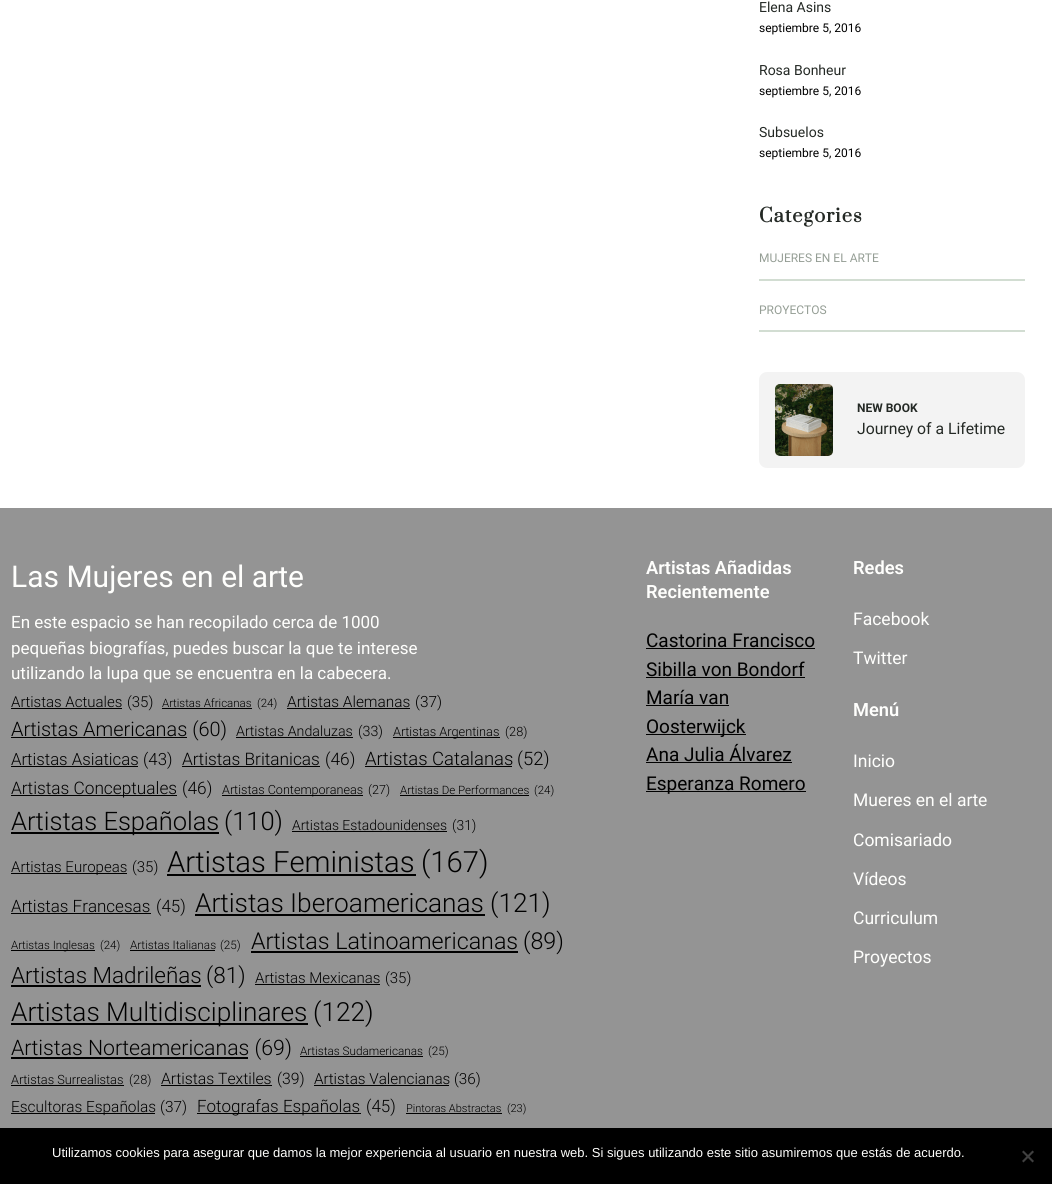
import math
import cairo

surface = cairo.ImageSurface(cairo.Format.RGB24, 1052, 1184)
ctx = cairo.Context(surface)
options = cairo.FontOptions()
options.set_hint_metrics(cairo.HintMetrics.OFF)
options.set_hint_style(cairo.HintStyle.NONE)
ctx.set_font_options(options)
ctx.set_miter_limit(4)


def ink(r, g, b):
    ctx.set_source_rgb(r / 255, g / 255, b / 255)


def write(x, y, s, family, size, color, bold=False, italic=False):
    ctx.select_font_face(family, cairo.FontSlant.ITALIC if italic else cairo.FontSlant.NORMAL, cairo.FontWeight.BOLD if bold else cairo.FontWeight.NORMAL)
    ctx.set_font_size(size)
    ink(*color)
    ctx.move_to(x, y)
    ctx.show_text(s)


def write_spaced(x, y, s, letter, word):
    ctx.move_to(x, y)
    for ch in s:
        ctx.show_text(ch)
        ctx.rel_move_to(letter + word * (ch == ' '), 0)


def block(x, y, w, h, *color):
    ink(*color)
    ctx.rectangle(x, y, w, h)
    ctx.fill()


def round_path(x, y, w, h, r):
    ctx.new_sub_path()
    for i, (u, v) in enumerate([(x + w - r, y + h - r), (x + r, y + h - r), (x + r, y + r), (x + w - r, y + r)]):
        ctx.arc(u, v, r, i * math.pi / 2, (i + 1) * math.pi / 2)
    ctx.close_path()


def paste(path, x, y, w, h):
    ctx.save()
    ctx.set_source_surface(cairo.ImageSurface.create_from_png(path), x, y)
    ctx.rectangle(x, y, w, h)
    ctx.fill()
    ctx.restore()


s1 = dict(family="Roboto", size=14, color=(36, 41, 37))
s2 = dict(family="Roboto", size=12, color=(0, 0, 0))
s3 = dict(family="Roboto", size=12, color=(149, 158, 149))
s4 = dict(family="Roboto", size=12, color=(36, 41, 37), bold=True)
s5 = dict(family="Roboto", size=15.75, color=(36, 41, 37))
s6 = dict(family="Roboto", size=30, color=(255, 255, 253))
s7 = dict(family="Roboto", size=17, color=(255, 255, 253))
s8 = dict(family="Roboto Light", size=15, color=(0, 0, 0))
s9 = dict(family="Roboto Light", size=11.5, color=(0, 0, 0))
s10 = dict(family="Roboto Light", size=15.4, color=(0, 0, 0))
s11 = dict(family="Roboto Light", size=19.9, color=(0, 0, 0))
s12 = dict(family="Roboto Light", size=14.25, color=(0, 0, 0))
s13 = dict(family="Roboto Light", size=12.75, color=(0, 0, 0))
s14 = dict(family="Roboto Light", size=16.75, color=(0, 0, 0))
s15 = dict(family="Roboto Light", size=17.25, color=(0, 0, 0))
s16 = dict(family="Roboto Light", size=18.5, color=(0, 0, 0))
s17 = dict(family="Roboto Light", size=12.6, color=(0, 0, 0))
s18 = dict(family="Roboto Light", size=25.5, color=(0, 0, 0))
s19 = dict(family="Roboto Light", size=13.9, color=(0, 0, 0))
s20 = dict(family="Roboto Light", size=29.25, color=(0, 0, 0))
s21 = dict(family="Roboto Light", size=17, color=(0, 0, 0))
s22 = dict(family="Roboto Light", size=26.25, color=(0, 0, 0))
s23 = dict(family="Roboto Light", size=11.75, color=(0, 0, 0))
s24 = dict(family="Roboto Light", size=23.25, color=(0, 0, 0))
s25 = dict(family="Roboto Light", size=22.5, color=(0, 0, 0))
s26 = dict(family="Roboto Light", size=21.25, color=(0, 0, 0))
s27 = dict(family="Roboto Light", size=15.75, color=(0, 0, 0))
s28 = dict(family="Roboto Light", size=15.25, color=(0, 0, 0))
s29 = dict(family="Roboto Light", size=11, color=(0, 0, 0))
s30 = dict(family="Roboto SemiBold", size=18.25, color=(255, 255, 253))
s31 = dict(family="Roboto", size=19, color=(0, 0, 0))
s32 = dict(family="Roboto", size=17.5, color=(255, 255, 253))
s33 = dict(family="Liberation Sans", size=13, color=(255, 255, 253))

ink(255, 255, 255)
ctx.paint()
write(759, 12, "Elena Asins", **s1)
write(759, 32, "septiembre 5, 2016", **s2)
write(759, 75, "Rosa Bonheur", **s1)
write(759, 95, "septiembre 5, 2016", **s2)
write(759, 137, "Subsuelos", **s1)
write(759, 157, "septiembre 5, 2016", **s2)
ctx.select_font_face("Prata", cairo.FontSlant.NORMAL, cairo.FontWeight.BOLD)
ctx.set_font_size(18.25)
ink(36, 41, 37)
write_spaced(759, 222, "Categories", 1, 0)
block(759, 279, 266, 2, 210, 221, 210)
write(759, 262, "MUJERES EN EL ARTE", **s3)
block(759, 330, 266, 2, 210, 221, 210)
write(759, 314, "PROYECTOS", **s3)
ink(243, 243, 243)
round_path(759, 372, 266, 96, 8)
ctx.fill()
paste("pic1.png", 775, 384, 58, 72)
write(857, 412, "NEW BOOK", **s4)
write(857, 434, "Journey of a Lifetime", **s5)
block(0, 508, 1052, 620, 148, 148, 148)
write(11, 587, "Las Mujeres en el arte", **s6)
write(11, 628, "En este espacio se han recopilado cerca de 1000", **s7)
write(11, 654, "pequeñas biografías, puedes buscar la que te interese", **s7)
write(11, 679, "utilizando la lupa que se encuentra en la cabecera.", **s7)
write(11, 707, "Artistas Actuales", **s8)
block(11, 708, 111, 1, 0, 0, 0)
write(127, 707, "(35)", **s8)
write(162, 707, "Artistas Africanas", **s9)
block(162, 708, 90, 1, 0, 0, 0)
write(257, 707, "(24)", **s9)
write(287, 707, "Artistas Alemanas", **s10)
block(287, 708, 123, 1, 0, 0, 0)
write(415, 707, "(37)", **s10)
block(11, 737, 176, 1, 0, 0, 0)
write(11, 736, "Artistas Americanas (60)", **s11)
write(236, 736, "Artistas Andaluzas", **s12)
block(236, 737, 117, 1, 0, 0, 0)
write(358, 736, "(33)", **s12)
block(393, 737, 107, 1, 0, 0, 0)
write(393, 736, "Artistas Argentinas", **s13)
write(505, 736, "(28)", **s13)
write(11, 765, "Artistas Asiaticas", **s14)
block(11, 766, 127, 1, 0, 0, 0)
write(143, 765, "(43)", **s14)
write(182, 765, "Artistas Britanicas", **s15)
block(182, 766, 138, 1, 0, 0, 0)
write(325, 765, "(46)", **s15)
write(365, 765, "Artistas Catalanas", **s16)
block(365, 766, 147, 1, 0, 0, 0)
write(517, 765, "(52)", **s16)
block(11, 795, 166, 1, 0, 0, 0)
write(11, 794, "Artistas Conceptuales", **s15)
write(182, 794, "(46)", **s15)
block(222, 795, 141, 1, 0, 0, 0)
write(222, 794, "Artistas Contemporaneas", **s17)
write(368, 794, "(27)", **s17)
write(400, 794, "Artistas De Performances", **s9)
block(400, 795, 129, 1, 0, 0, 0)
write(534, 794, "(24)", **s9)
block(11, 832, 208, 2, 0, 0, 0)
write(11, 830, "Artistas Españolas", **s18)
write(224, 830, "(110)", **s18)
write(292, 830, "Artistas Estadounidenses", **s19)
block(292, 831, 155, 1, 0, 0, 0)
write(452, 830, "(31)", **s19)
block(11, 873, 116, 1, 0, 0, 0)
write(11, 872, "Artistas Europeas", **s8)
write(132, 872, "(35)", **s8)
write(167, 872, "Artistas Feministas", **s20)
block(167, 874, 249, 2, 0, 0, 0)
write(421, 872, "(167)", **s20)
write(11, 912, "Artistas Francesas", **s21)
block(11, 913, 140, 1, 0, 0, 0)
write(156, 912, "(45)", **s21)
write(195, 912, "Artistas Iberoamericanas", **s22)
block(195, 914, 290, 2, 0, 0, 0)
write(490, 912, "(121)", **s22)
block(11, 950, 84, 1, 0, 0, 0)
write(11, 949, "Artistas Inglesas", **s9)
write(100, 949, "(24)", **s9)
write(130, 949, "Artistas Italianas", **s23)
block(130, 950, 85, 1, 0, 0, 0)
write(220, 949, "(25)", **s23)
write(251, 949, "Artistas Latinoamericanas", **s24)
block(251, 951, 267, 2, 0, 0, 0)
write(523, 949, "(89)", **s24)
write(11, 983, "Artistas Madrileñas", **s25)
block(11, 985, 190, 2, 0, 0, 0)
write(206, 983, "(81)", **s25)
write(255, 983, "Artistas Mexicanas", **s8)
block(255, 984, 125, 1, 0, 0, 0)
write(385, 983, "(35)", **s8)
block(11, 1023, 297, 2, 0, 0, 0)
write(11, 1021, "Artistas Multidisciplinares", **s22)
write(313, 1021, "(122)", **s22)
block(11, 1057, 237, 2, 0, 0, 0)
write(11, 1055, "Artistas Norteamericanas (69)", **s26)
write(300, 1055, "Artistas Sudamericanas", **s23)
block(300, 1056, 123, 1, 0, 0, 0)
write(428, 1055, "(25)", **s23)
write(11, 1084, "Artistas Surrealistas", **s13)
block(11, 1085, 113, 1, 0, 0, 0)
write(129, 1084, "(28)", **s13)
write(161, 1084, "Artistas Textiles", **s27)
block(161, 1085, 111, 1, 0, 0, 0)
write(277, 1084, "(39)", **s27)
write(314, 1084, "Artistas Valencianas", **s28)
block(314, 1085, 135, 1, 0, 0, 0)
write(454, 1084, "(36)", **s28)
block(11, 1113, 144, 1, 0, 0, 0)
write(11, 1112, "Escultoras Españolas", **s10)
write(160, 1112, "(37)", **s10)
block(197, 1113, 164, 1, 0, 0, 0)
write(197, 1112, "Fotografas Españolas", **s21)
write(366, 1112, "(45)", **s21)
write(406, 1112, "Pintoras Abstractas", **s29)
block(406, 1113, 96, 1, 0, 0, 0)
write(507, 1112, "(23)", **s29)
write(646, 574, "Artistas Añadidas", **s30)
write(646, 598, "Recientemente", **s30)
write(646, 647, "Castorina Francisco", **s31)
block(646, 648, 169, 1, 0, 0, 0)
write(646, 676, "Sibilla von Bondorf", **s31)
block(646, 677, 159, 1, 0, 0, 0)
write(646, 704, "María van", **s31)
block(646, 705, 83, 1, 0, 0, 0)
block(646, 734, 100, 1, 0, 0, 0)
write(646, 733, "Oosterwijck", **s31)
write(646, 761, "Ana Julia Álvarez", **s31)
block(646, 762, 146, 1, 0, 0, 0)
block(646, 791, 160, 1, 0, 0, 0)
write(646, 790, "Esperanza Romero", **s31)
write(853, 574, "Redes", **s30)
write(853, 625, "Facebook", **s32)
write(853, 664, "Twitter", **s32)
write(853, 716, "Menú", **s30)
write(853, 767, "Inicio", **s32)
write(853, 806, "Mueres en el arte", **s32)
write(853, 846, "Comisariado", **s32)
write(853, 885, "Vídeos", **s32)
write(853, 924, "Curriculum", **s32)
write(853, 963, "Proyectos", **s32)
block(0, 1128, 1052, 56, 0, 0, 0)
write(52, 1157, "Utilizamos cookies para asegurar que damos la mejor experiencia al usuario en nuestra web. Si sigues utilizando este sitio asumiremos que estás de acuerdo.", **s33)
ink(64, 64, 64)
ctx.new_path()
ctx.move_to(1032.5, 1150.5)
ctx.line_to(1034, 1152)
ctx.line_to(1023.5, 1162.5)
ctx.line_to(1022, 1161)
ctx.close_path()
ctx.fill()
ctx.new_path()
ctx.move_to(1022, 1152)
ctx.line_to(1023.5, 1150.5)
ctx.line_to(1034, 1161)
ctx.line_to(1032.5, 1162.5)
ctx.close_path()
ctx.fill()
surface.write_to_png("screenshot.png")
